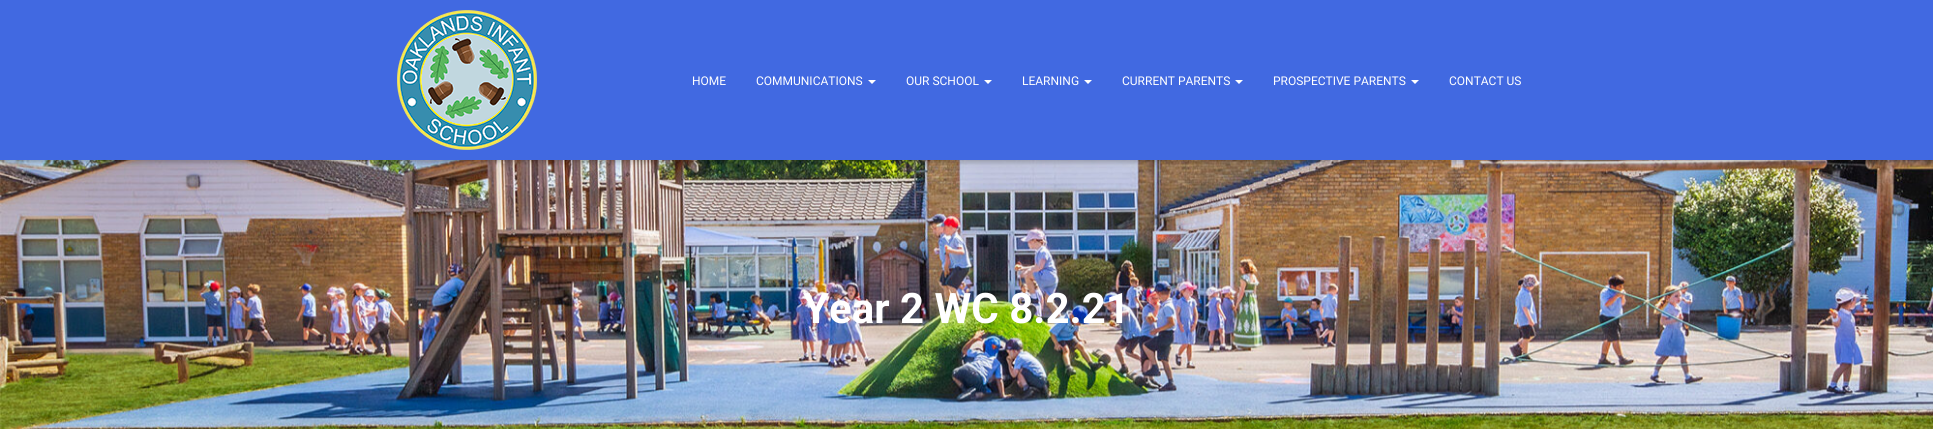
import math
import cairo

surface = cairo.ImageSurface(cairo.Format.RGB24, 1933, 429)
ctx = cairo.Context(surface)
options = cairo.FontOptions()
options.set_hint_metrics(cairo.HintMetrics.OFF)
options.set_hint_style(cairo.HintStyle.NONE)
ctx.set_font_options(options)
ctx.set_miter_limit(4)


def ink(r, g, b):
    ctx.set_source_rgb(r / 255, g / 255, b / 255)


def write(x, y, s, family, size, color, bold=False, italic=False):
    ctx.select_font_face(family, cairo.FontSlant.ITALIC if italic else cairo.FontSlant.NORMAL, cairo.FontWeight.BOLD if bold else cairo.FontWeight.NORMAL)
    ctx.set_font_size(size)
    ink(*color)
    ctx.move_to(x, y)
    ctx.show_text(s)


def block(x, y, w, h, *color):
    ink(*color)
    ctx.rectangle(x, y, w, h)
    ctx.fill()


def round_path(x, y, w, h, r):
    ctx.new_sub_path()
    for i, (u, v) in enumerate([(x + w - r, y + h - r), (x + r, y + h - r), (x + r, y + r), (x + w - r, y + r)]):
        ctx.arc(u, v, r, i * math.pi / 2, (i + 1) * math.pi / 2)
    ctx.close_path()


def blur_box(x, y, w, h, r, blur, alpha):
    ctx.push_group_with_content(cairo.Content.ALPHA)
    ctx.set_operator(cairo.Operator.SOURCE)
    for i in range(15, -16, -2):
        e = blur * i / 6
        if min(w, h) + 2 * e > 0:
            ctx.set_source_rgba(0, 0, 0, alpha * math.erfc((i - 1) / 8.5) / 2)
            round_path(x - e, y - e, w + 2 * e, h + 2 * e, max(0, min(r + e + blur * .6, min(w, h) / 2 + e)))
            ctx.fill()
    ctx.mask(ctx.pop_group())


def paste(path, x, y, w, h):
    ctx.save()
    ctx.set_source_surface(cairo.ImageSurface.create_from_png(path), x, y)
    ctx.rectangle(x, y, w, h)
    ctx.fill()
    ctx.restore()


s1 = dict(family="Roboto", size=12, color=(255, 255, 255))
s2 = dict(family="Roboto", size=42, color=(255, 255, 255), bold=True)

ink(255, 255, 255)
ctx.paint()
paste("pic2.png", 0, 160, 1933, 269)
ink(0, 0, 0)
blur_box(2, 6, 1929, 156, 0, 2.5, 0.1)
blur_box(0, 1, 1933, 160, 0, 5, 0.12)
blur_box(6, 7, 1921, 148, 0, 5, 0.42)
block(0, 0, 1933, 160, 65, 105, 225)
paste("pic1.png", 397, 10, 140, 140)
write(692, 85, "HOME", **s1)
write(756, 85, "COMMUNICATIONS", **s1)
ctx.new_path()
ctx.move_to(868, 80)
ctx.line_to(876, 80)
ctx.line_to(872, 84)
ctx.close_path()
ctx.fill()
write(906, 85, "OUR SCHOOL", **s1)
ctx.new_path()
ctx.move_to(984, 80)
ctx.line_to(992, 80)
ctx.line_to(988, 84)
ctx.close_path()
ctx.fill()
write(1022, 85, "LEARNING", **s1)
ctx.new_path()
ctx.move_to(1084, 80)
ctx.line_to(1092, 80)
ctx.line_to(1088, 84)
ctx.close_path()
ctx.fill()
write(1122, 85, "CURRENT PARENTS", **s1)
ctx.new_path()
ctx.move_to(1235, 80)
ctx.line_to(1243, 80)
ctx.line_to(1239, 84)
ctx.close_path()
ctx.fill()
write(1273, 85, "PROSPECTIVE PARENTS", **s1)
ctx.new_path()
ctx.move_to(1411, 80)
ctx.line_to(1419, 80)
ctx.line_to(1415, 84)
ctx.close_path()
ctx.fill()
write(1449, 85, "CONTACT US", **s1)
write(803, 323, "Year 2 WC 8.2.21", **s2)
surface.write_to_png("screenshot.png")
